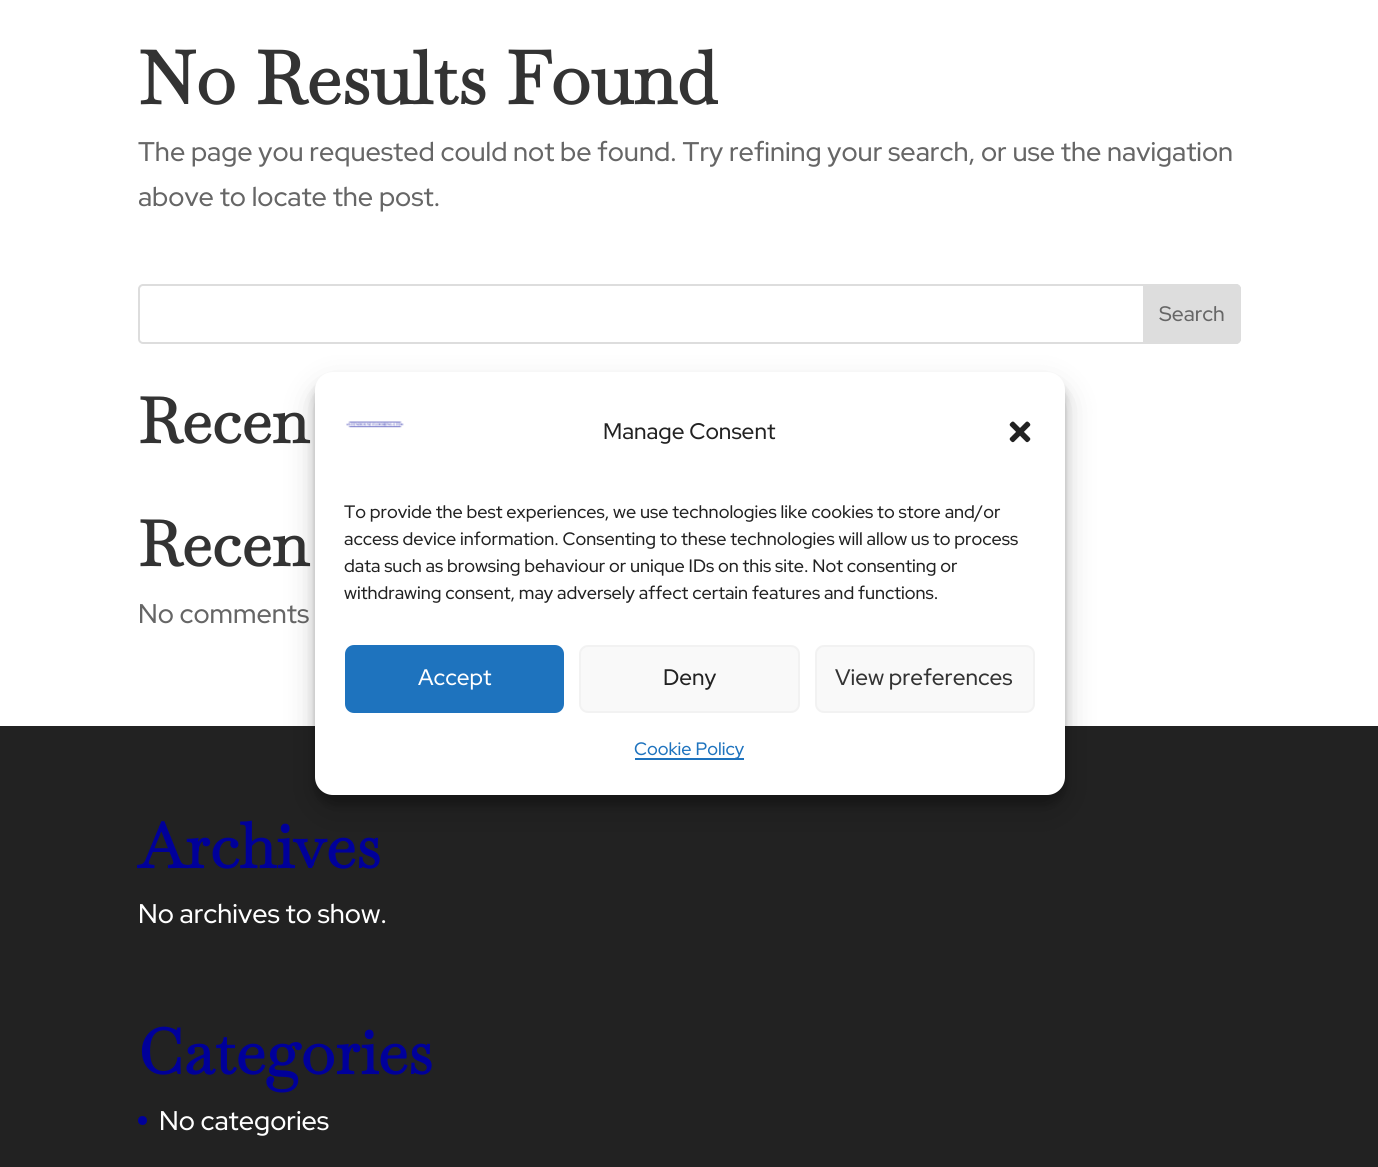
import math
import cairo

surface = cairo.ImageSurface(cairo.Format.RGB24, 1378, 1167)
ctx = cairo.Context(surface)
options = cairo.FontOptions()
options.set_hint_metrics(cairo.HintMetrics.OFF)
options.set_hint_style(cairo.HintStyle.NONE)
ctx.set_font_options(options)
ctx.set_miter_limit(4)


def ink(r, g, b):
    ctx.set_source_rgb(r / 255, g / 255, b / 255)


def write(x, y, s, family, size, color, bold=False, italic=False):
    ctx.select_font_face(family, cairo.FontSlant.ITALIC if italic else cairo.FontSlant.NORMAL, cairo.FontWeight.BOLD if bold else cairo.FontWeight.NORMAL)
    ctx.set_font_size(size)
    ink(*color)
    ctx.move_to(x, y)
    ctx.show_text(s)


def block(x, y, w, h, *color):
    ink(*color)
    ctx.rectangle(x, y, w, h)
    ctx.fill()


def round_path(x, y, w, h, r):
    ctx.new_sub_path()
    for i, (u, v) in enumerate([(x + w - r, y + h - r), (x + r, y + h - r), (x + r, y + r), (x + w - r, y + r)]):
        ctx.arc(u, v, r, i * math.pi / 2, (i + 1) * math.pi / 2)
    ctx.close_path()


def blur_box(x, y, w, h, r, blur, alpha):
    ctx.push_group_with_content(cairo.Content.ALPHA)
    ctx.set_operator(cairo.Operator.SOURCE)
    for i in range(15, -16, -2):
        e = blur * i / 6
        if min(w, h) + 2 * e > 0:
            ctx.set_source_rgba(0, 0, 0, alpha * math.erfc((i - 1) / 8.5) / 2)
            round_path(x - e, y - e, w + 2 * e, h + 2 * e, max(0, min(r + e + blur * .6, min(w, h) / 2 + e)))
            ctx.fill()
    ctx.mask(ctx.pop_group())


def paste(path, x, y, w, h):
    ctx.save()
    ctx.set_source_surface(cairo.ImageSurface.create_from_png(path), x, y)
    ctx.rectangle(x, y, w, h)
    ctx.fill()
    ctx.restore()


s1 = dict(family="Baskervville", size=73.5, color=(51, 51, 51), bold=True)
s2 = dict(family="Red Hat Display Medium", size=27, color=(102, 102, 102))
s3 = dict(family="Red Hat Display Medium", size=21, color=(102, 102, 102))
s4 = dict(family="Baskervville", size=63, color=(51, 51, 51), bold=True)
s5 = dict(family="Baskervville", size=63, color=(0, 0, 154), bold=True)
s6 = dict(family="Red Hat Display Medium", size=27, color=(255, 255, 255))
s7 = dict(family="Red Hat Display Medium", size=22.5, color=(34, 34, 34))
s8 = dict(family="Red Hat Display Medium", size=18, color=(34, 34, 34))
s9 = dict(family="Red Hat Display Medium", size=22.5, color=(255, 255, 255))
s10 = dict(family="Red Hat Display Medium", size=22.5, color=(51, 51, 51))
s11 = dict(family="Red Hat Display Medium", size=18, color=(30, 115, 190))

ink(255, 255, 255)
ctx.paint()
write(138, 104, "No Results Found", **s1)
write(138, 161, "The page you requested could not be found. Try refining your search, or use the navigation", **s2)
write(138, 206, "above to locate the post.", **s2)
round_path(139, 285, 1101, 58, 4)
ink(221, 221, 221)
ctx.stroke()
ctx.new_path()
ctx.move_to(1144, 285)
ctx.line_to(1236, 285)
ctx.curve_to(1238, 285, 1240, 287, 1240, 289)
ctx.line_to(1240, 339)
ctx.curve_to(1240, 341, 1238, 343, 1236, 343)
ctx.line_to(1144, 343)
ctx.close_path()
ctx.fill_preserve()
ctx.stroke()
write(1159, 321, "Search", **s3)
write(138, 443, "Recen", **s4)
write(138, 566, "Recen", **s4)
write(138, 623, "No comments", **s2)
block(0, 726, 1378, 441, 34, 34, 34)
write(138, 868, "Archives", **s5)
write(138, 923, "No archives to show.", **s6)
write(138, 1074, "Categories", **s5)
ctx.new_path()
ctx.arc(142.5, 1120.5, 4.5, 0, 2 * math.pi)
ctx.fill()
write(159, 1130, "No categories", **s6)
ink(0, 0, 0)
blur_box(315, 381, 750, 423, 18, 4.5, 0.23)
blur_box(315, 387, 750, 423, 18, 15, 0.19)
ink(255, 255, 255)
round_path(315, 372, 750, 423, 18)
ctx.fill()
paste("pic1.png", 346, 421, 58, 7)
write(603, 439, "Manage Consent", **s7)
paste("pic2.png", 1009, 421, 22, 22)
write(344, 518, "To provide the best experiences, we use technologies like cookies to store and/or", **s8)
write(344, 545, "access device information. Consenting to these technologies will allow us to process", **s8)
write(344, 572, "data such as browsing behaviour or unique IDs on this site. Not consenting or", **s8)
write(344, 599, "withdrawing consent, may adversely affect certain features and functions.", **s8)
ink(30, 115, 190)
round_path(346, 646, 217, 66, 8)
ctx.fill_preserve()
ctx.stroke()
write(418, 685, "Accept", **s9)
ink(249, 249, 249)
round_path(580, 646, 219, 66, 8)
ctx.fill_preserve()
ink(242, 242, 242)
ctx.stroke()
write(663, 685, "Deny", **s7)
ink(249, 249, 249)
round_path(816, 646, 218, 66, 8)
ctx.fill_preserve()
ink(242, 242, 242)
ctx.stroke()
write(835, 685, "View preferences", **s10)
block(635, 758, 109, 2, 30, 115, 190)
write(634, 755, "Cookie Policy", **s11)
surface.write_to_png("screenshot.png")
